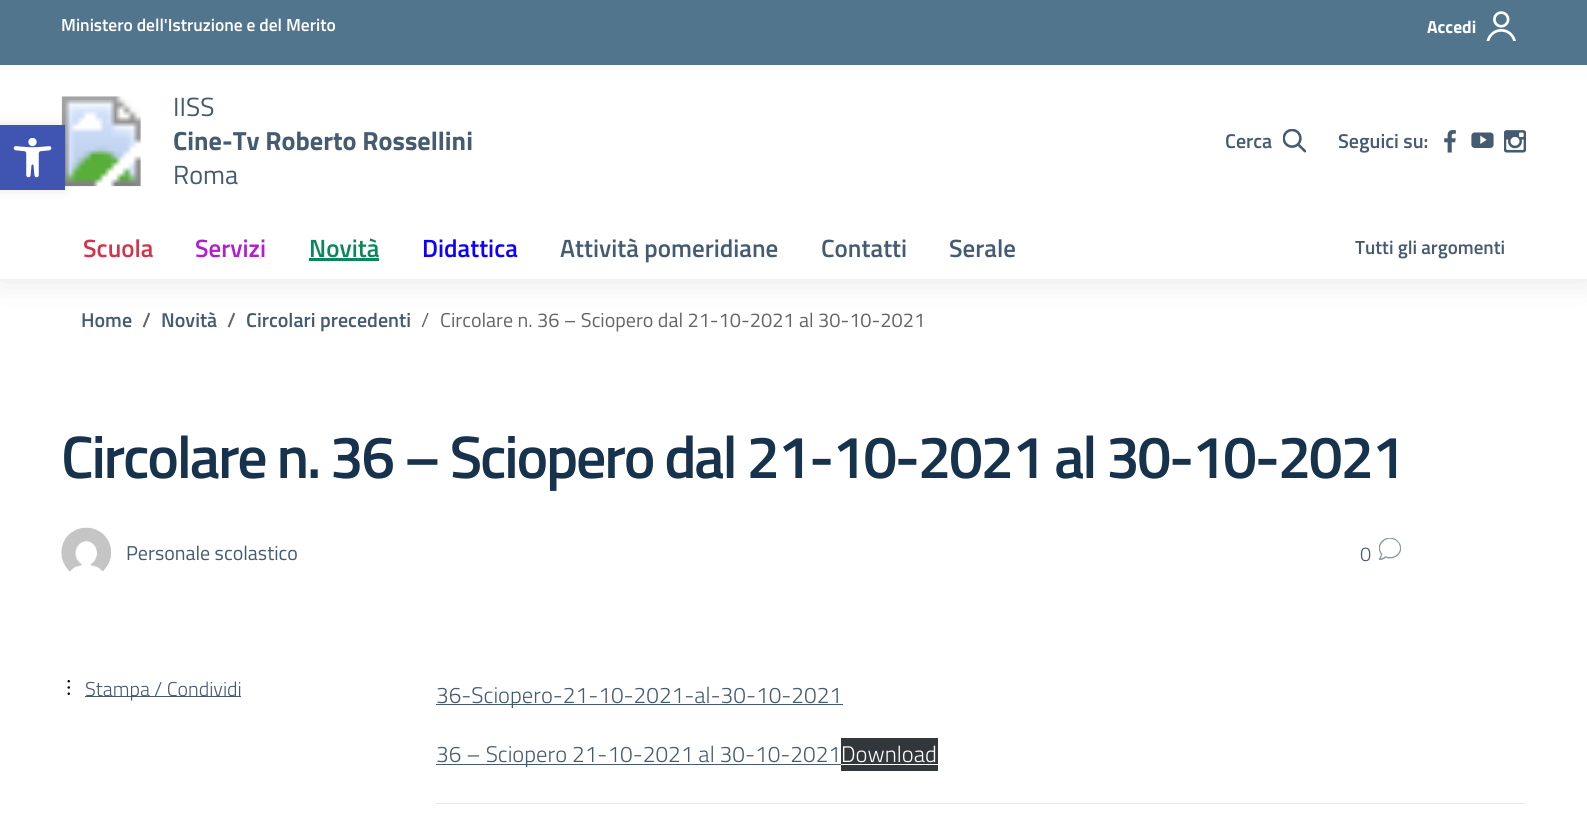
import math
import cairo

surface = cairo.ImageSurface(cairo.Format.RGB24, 1587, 820)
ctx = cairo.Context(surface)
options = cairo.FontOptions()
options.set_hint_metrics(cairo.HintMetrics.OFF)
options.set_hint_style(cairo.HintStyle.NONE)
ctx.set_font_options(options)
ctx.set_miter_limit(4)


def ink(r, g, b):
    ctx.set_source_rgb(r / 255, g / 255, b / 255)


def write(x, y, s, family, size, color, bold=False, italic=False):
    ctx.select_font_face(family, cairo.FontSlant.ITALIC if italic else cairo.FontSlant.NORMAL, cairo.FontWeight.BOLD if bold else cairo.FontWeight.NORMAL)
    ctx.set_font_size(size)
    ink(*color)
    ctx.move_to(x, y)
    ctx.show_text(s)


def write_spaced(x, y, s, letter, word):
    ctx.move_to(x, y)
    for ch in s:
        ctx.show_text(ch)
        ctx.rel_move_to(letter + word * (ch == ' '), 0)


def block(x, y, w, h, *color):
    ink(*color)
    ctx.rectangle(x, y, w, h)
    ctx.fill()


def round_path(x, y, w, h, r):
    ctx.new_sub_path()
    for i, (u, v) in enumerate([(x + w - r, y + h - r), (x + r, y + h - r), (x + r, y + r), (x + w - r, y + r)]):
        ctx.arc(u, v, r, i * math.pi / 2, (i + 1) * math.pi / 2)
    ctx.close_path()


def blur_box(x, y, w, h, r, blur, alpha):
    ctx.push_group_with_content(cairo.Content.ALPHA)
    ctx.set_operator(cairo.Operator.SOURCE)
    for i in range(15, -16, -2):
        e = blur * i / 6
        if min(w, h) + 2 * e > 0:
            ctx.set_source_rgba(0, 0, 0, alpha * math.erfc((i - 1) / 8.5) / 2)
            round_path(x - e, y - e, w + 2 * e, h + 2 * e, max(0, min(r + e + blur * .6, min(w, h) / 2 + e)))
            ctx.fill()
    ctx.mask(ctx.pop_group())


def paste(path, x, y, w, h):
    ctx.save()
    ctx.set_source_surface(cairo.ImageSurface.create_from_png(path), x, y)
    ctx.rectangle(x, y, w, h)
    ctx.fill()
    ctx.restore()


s1 = dict(family="Titillium Web SemiBold", size=17.5, color=(255, 255, 255))
s2 = dict(family="Titillium Web", size=17.5, color=(255, 255, 255), bold=True)
s3 = dict(family="Titillium Web", size=26.25, color=(69, 91, 113))
s4 = dict(family="Titillium Web", size=26.25, color=(69, 91, 113), bold=True)
s5 = dict(family="Titillium Web SemiBold", size=20, color=(69, 91, 113))
s6 = dict(family="Titillium Web SemiBold", size=25, color=(209, 52, 76))
s7 = dict(family="Titillium Web SemiBold", size=25, color=(178, 29, 208))
s8 = dict(family="Titillium Web SemiBold", size=25, color=(14, 134, 92))
s9 = dict(family="Titillium Web SemiBold", size=25, color=(13, 0, 255))
s10 = dict(family="Titillium Web SemiBold", size=25, color=(69, 91, 113))
s11 = dict(family="Titillium Web SemiBold", size=19, color=(69, 91, 113))
s12 = dict(family="Titillium Web SemiBold", size=20, color=(101, 101, 102))
s13 = dict(family="Titillium Web", size=20, color=(101, 101, 102))
s14 = dict(family="Titillium Web", size=20, color=(69, 91, 113))
s15 = dict(family="Titillium Web Light", size=20, color=(69, 91, 113))
s16 = dict(family="Titillium Web Light", size=22.6, color=(69, 91, 113))
s17 = dict(family="Titillium Web Light", size=22.6, color=(255, 255, 255))

ink(255, 255, 255)
ctx.paint()
ink(0, 0, 0)
blur_box(0, 3, 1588, 278, 0, 15.5, 0.1)
block(0, 65, 1587, 214, 255, 255, 255)
paste("pic3.png", 61, 96, 80, 91)
ink(0, 0, 0)
blur_box(0, 125, 65, 65, 0, 6, 0.1)
block(0, 125, 65, 65, 64, 84, 178)
paste("pic1.png", 13, 138, 39, 40)
block(0, 0, 1587, 65, 81, 117, 141)
write(61, 31, "Ministero dell'Istruzione e del Merito", **s1)
write(1427, 33, "Accedi", **s2)
paste("pic2.png", 1486, 11, 30, 30)
write(173, 116, "IISS", **s3)
write(173, 150, "Cine-Tv Roberto Rossellini", **s4)
write(173, 184, "Roma", **s3)
write(1225, 148, "Cerca", **s5)
paste("pic4.png", 1283, 129, 23, 24)
write(1338, 148, "Seguici su:", **s5)
paste("pic5.png", 1444, 130, 12, 23)
paste("pic6.png", 1471, 132, 23, 16)
paste("pic7.png", 1504, 130, 22, 23)
write(83, 257, "Scuola", **s6)
write(195, 257, "Servizi", **s7)
write(309, 257, "Novità", **s8)
block(309, 258, 70, 3, 14, 134, 92)
write(422, 257, "Didattica", **s9)
write(560, 257, "Attività pomeridiane", **s10)
write(821, 257, "Contatti", **s10)
write(949, 257, "Serale", **s10)
write(1355, 254, "Tutti gli argomenti", **s11)
write(81, 327, "Home", **s5)
write(142, 327, "/", **s12)
write(161, 327, "Novità", **s5)
write(227, 327, "/", **s12)
write(246, 327, "Circolari precedenti", **s5)
write(421, 327, "/", **s13)
write(440, 327, "Circolare n. 36 – Sciopero dal 21-10-2021 al 30-10-2021", **s13)
ctx.select_font_face("Titillium Web SemiBold")
ctx.set_font_size(60)
ink(23, 50, 77)
write_spaced(61, 478, "Circolare n. 36 – Sciopero dal 21-10-2021 al 30-10-2021", -2.25, 0)
paste("pic8.png", 61, 527, 50, 45)
write(126, 560, "Personale scolastico", **s14)
write(1360, 561, "0", **s15)
paste("pic9.png", 1379, 538, 22, 22)
paste("pic10.png", 67, 680, 3, 15)
block(85, 696, 156, 1, 69, 91, 113)
write(85, 696, "Stampa / Condividi", **s15)
block(436, 704, 407, 1, 69, 91, 113)
write(436, 703, "36-Sciopero-21-10-2021-al-30-10-2021", **s16)
block(436, 764, 405, 1, 69, 91, 113)
write(436, 762, "36 – Sciopero 21-10-2021 al 30-10-2021", **s16)
block(841, 738, 97, 33, 50, 55, 60)
write(841, 762, "Download", **s17)
block(841, 764, 97, 1, 255, 255, 255)
block(436, 803, 1090, 1, 231, 234, 237)
surface.write_to_png("screenshot.png")
